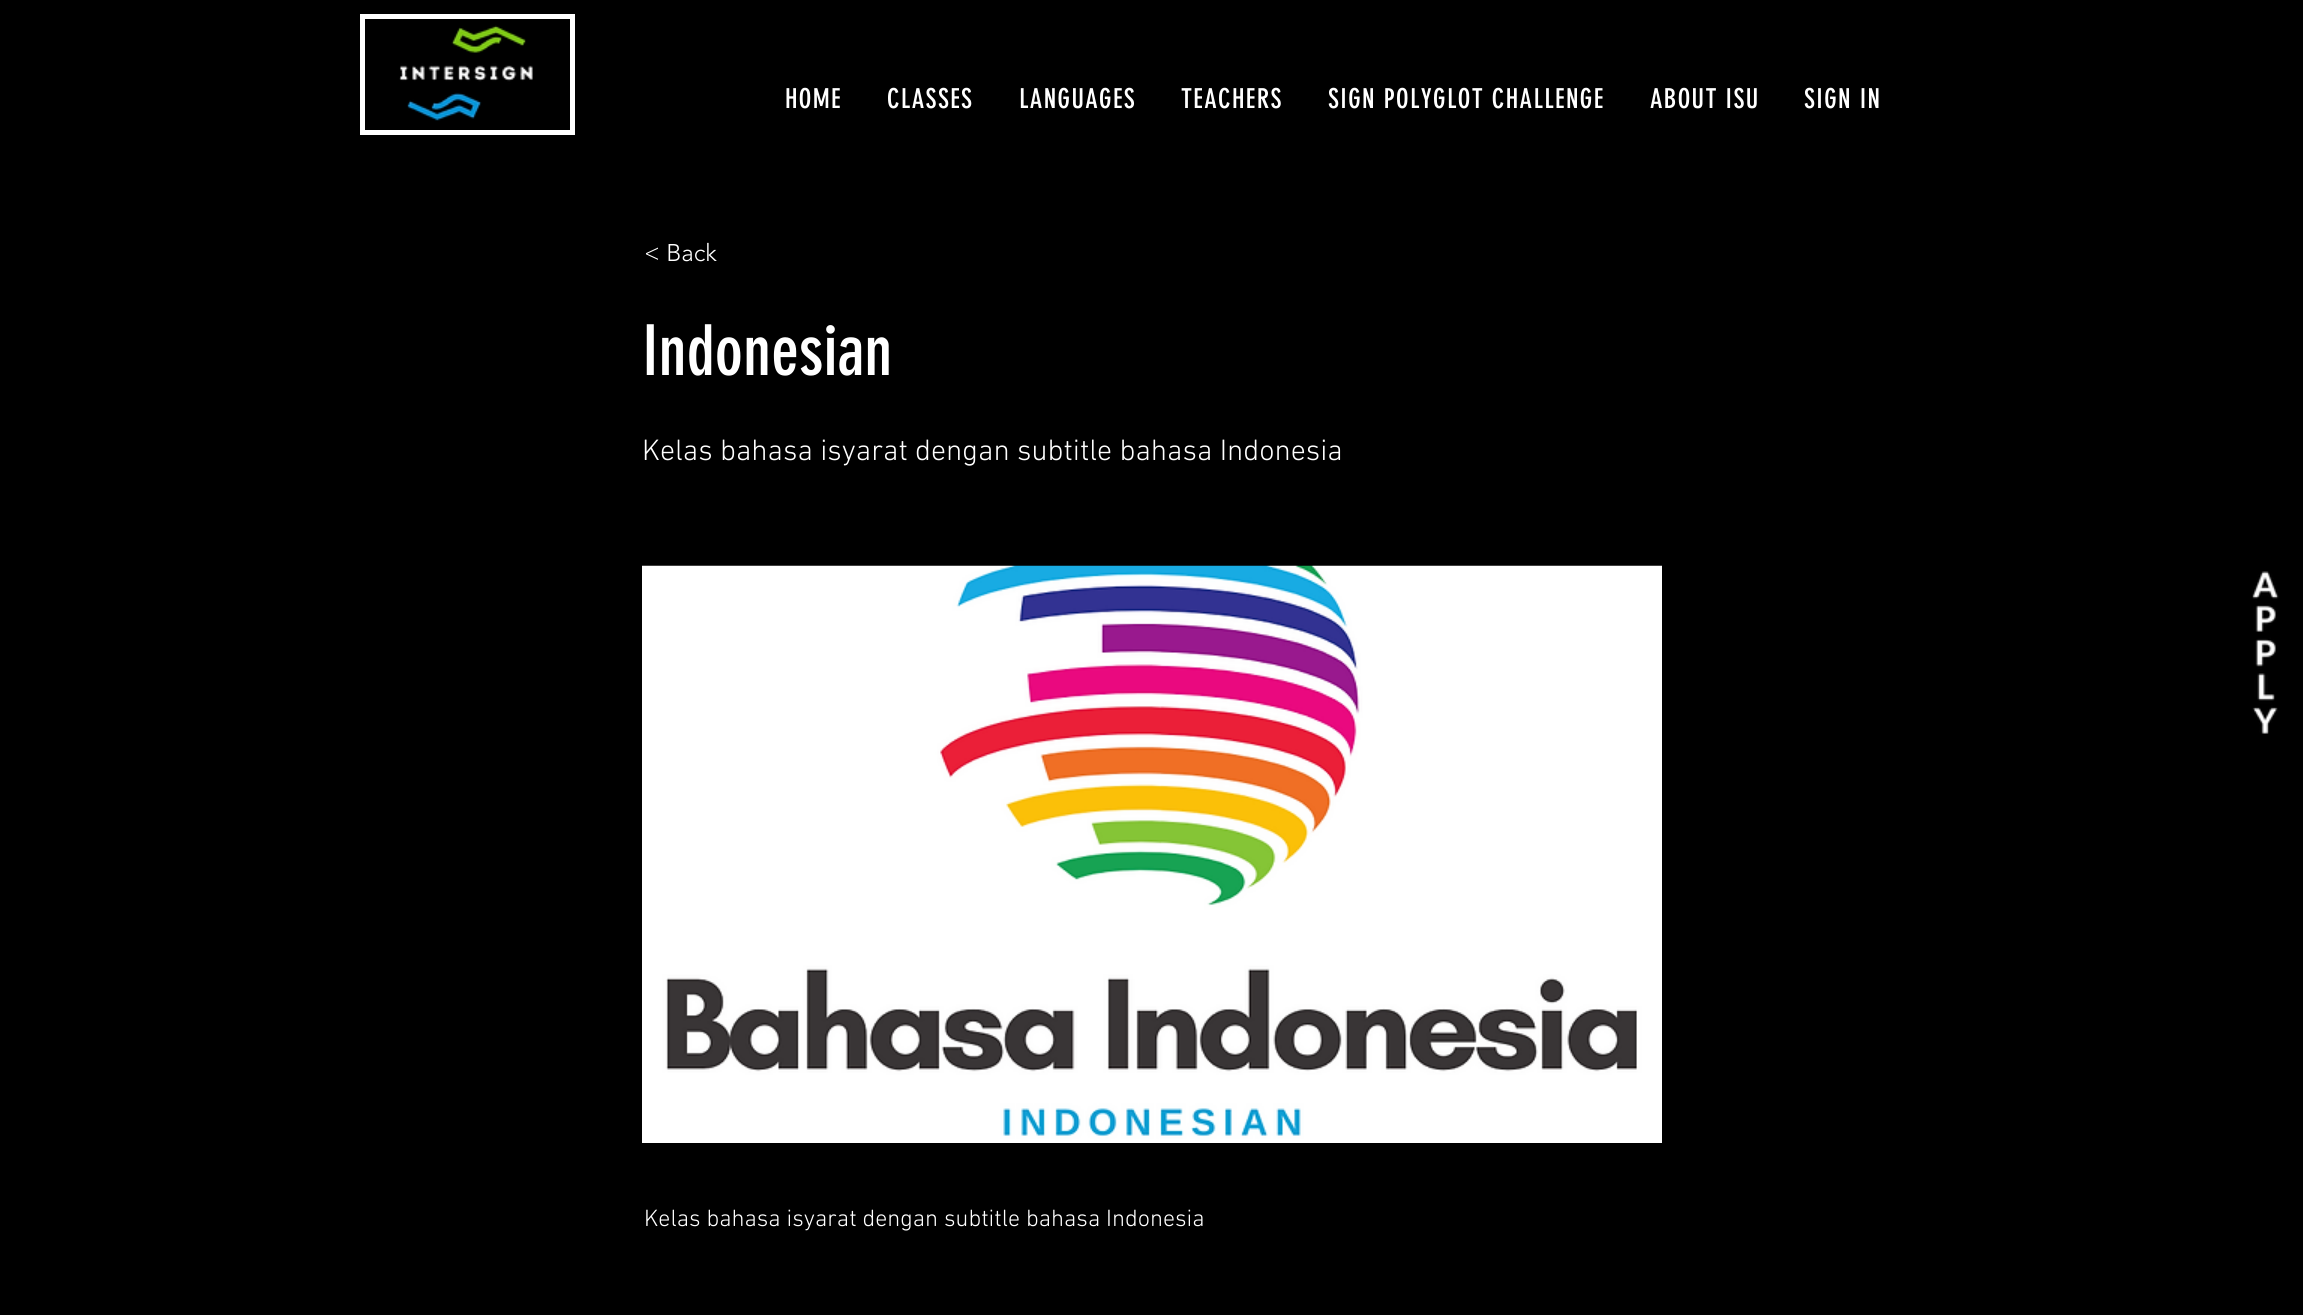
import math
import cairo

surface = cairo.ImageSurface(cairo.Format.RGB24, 2303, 1315)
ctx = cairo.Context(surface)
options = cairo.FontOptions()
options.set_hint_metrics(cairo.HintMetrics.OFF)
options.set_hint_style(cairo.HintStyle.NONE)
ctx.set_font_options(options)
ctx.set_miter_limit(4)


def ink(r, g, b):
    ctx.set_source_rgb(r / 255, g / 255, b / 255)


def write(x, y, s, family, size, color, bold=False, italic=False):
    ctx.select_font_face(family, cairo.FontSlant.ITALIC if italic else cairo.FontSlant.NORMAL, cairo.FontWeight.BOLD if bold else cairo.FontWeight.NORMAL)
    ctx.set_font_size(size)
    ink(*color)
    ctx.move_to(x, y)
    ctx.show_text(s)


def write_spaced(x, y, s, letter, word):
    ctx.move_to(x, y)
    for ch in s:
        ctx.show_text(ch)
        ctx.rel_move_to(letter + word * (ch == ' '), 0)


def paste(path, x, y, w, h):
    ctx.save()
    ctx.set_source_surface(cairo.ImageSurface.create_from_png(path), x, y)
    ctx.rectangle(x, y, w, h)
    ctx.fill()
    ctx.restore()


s1 = dict(family="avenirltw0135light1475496 Light", size=24, color=(255, 255, 255))
s2 = dict(family="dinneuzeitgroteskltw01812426", size=69, color=(255, 255, 255))
s3 = dict(family="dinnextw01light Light", size=30, color=(255, 255, 255))
s4 = dict(family="dinnextw01light Light", size=24, color=(255, 255, 255))

ink(0, 0, 0)
ctx.paint()
ctx.rectangle(362.5, 16.5, 210, 116)
ink(255, 255, 255)
ctx.set_line_width(5)
ctx.stroke()
paste("pic1.png", 399, 25, 134, 96)
ctx.select_font_face("dinneuzeitgroteskltw01812426")
ctx.set_font_size(27)
write_spaced(785, 108, "HOME", 1.35, 0)
write_spaced(887, 108, "CLASSES", 1.35, 0)
write_spaced(1019, 108, "LANGUAGES", 1.35, 0)
write_spaced(1181, 108, "TEACHERS", 1.35, 0)
write_spaced(1328, 108, "SIGN POLYGLOT CHALLENGE", 1.35, 0)
write_spaced(1650, 108, "ABOUT ISU", 1.35, 0)
write_spaced(1804, 108, "SIGN IN", 1.35, 0)
write(644, 261, "< Back", **s1)
write(642, 375, "Indonesian", **s2)
write(642, 460, "Kelas bahasa isyarat dengan subtitle bahasa Indonesia", **s3)
paste("pic2.png", 642, 565, 1020, 578)
write(644, 1226, "Kelas bahasa isyarat dengan subtitle bahasa Indonesia", **s4)
paste("pic3.png", 2252, 571, 27, 163)
surface.write_to_png("screenshot.png")
